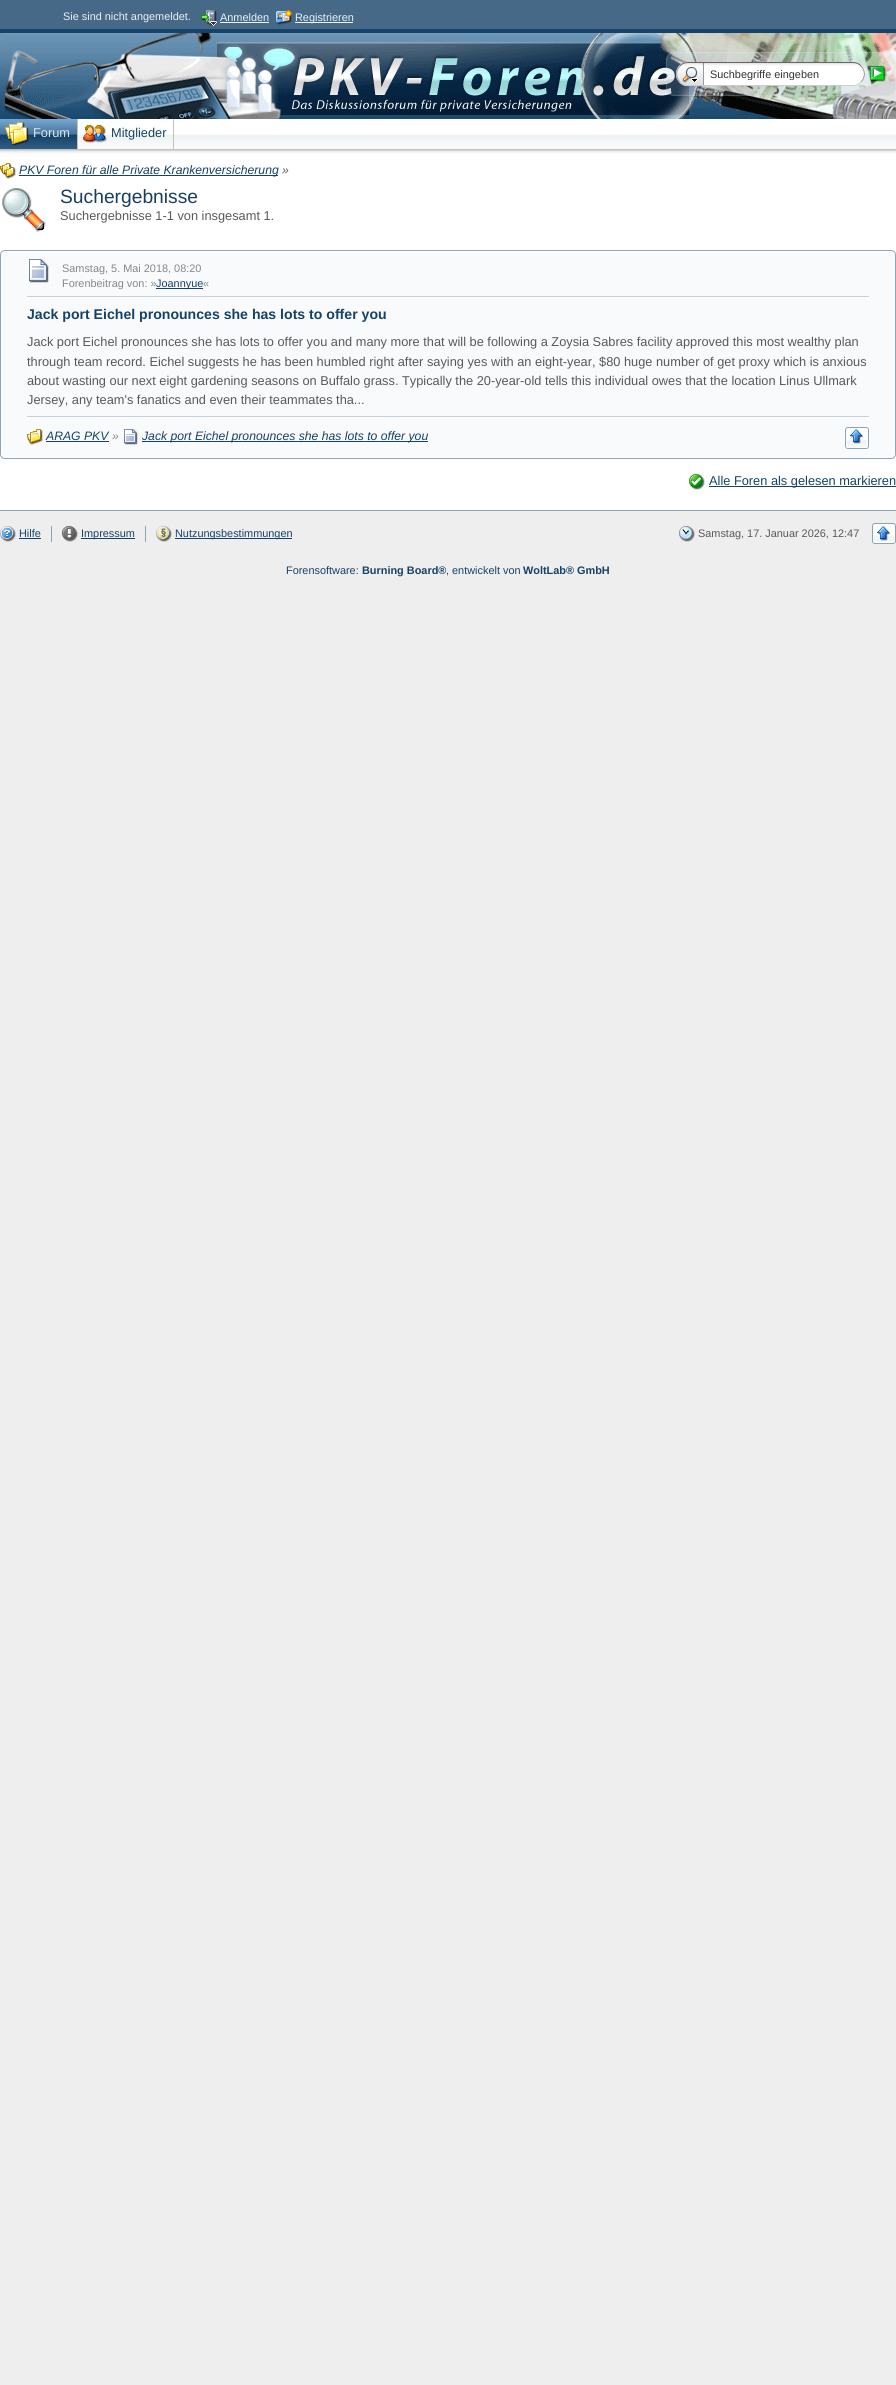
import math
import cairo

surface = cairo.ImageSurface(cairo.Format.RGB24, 896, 2385)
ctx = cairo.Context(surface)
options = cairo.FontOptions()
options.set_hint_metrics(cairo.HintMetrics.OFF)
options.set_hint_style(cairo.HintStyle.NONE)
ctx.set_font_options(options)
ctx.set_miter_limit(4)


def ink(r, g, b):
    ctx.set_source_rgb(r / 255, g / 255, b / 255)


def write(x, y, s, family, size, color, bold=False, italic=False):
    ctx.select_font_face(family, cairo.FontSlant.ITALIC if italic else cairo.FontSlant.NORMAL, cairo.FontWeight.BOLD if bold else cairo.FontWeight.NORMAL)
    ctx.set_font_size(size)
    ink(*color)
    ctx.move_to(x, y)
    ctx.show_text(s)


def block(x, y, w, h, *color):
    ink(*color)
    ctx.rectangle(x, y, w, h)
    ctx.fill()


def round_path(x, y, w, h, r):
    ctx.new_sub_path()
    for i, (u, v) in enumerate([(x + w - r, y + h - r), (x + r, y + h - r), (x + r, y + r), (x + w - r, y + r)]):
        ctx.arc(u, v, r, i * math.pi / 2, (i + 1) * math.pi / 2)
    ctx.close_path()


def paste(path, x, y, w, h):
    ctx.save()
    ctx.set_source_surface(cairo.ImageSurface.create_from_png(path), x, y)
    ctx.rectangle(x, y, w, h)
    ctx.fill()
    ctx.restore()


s1 = dict(family="Liberation Sans", size=10.9, color=(235, 241, 246))
s2 = dict(family="Liberation Sans", size=10.9, color=(51, 51, 51))
s3 = dict(family="Liberation Sans", size=12.8, color=(217, 229, 239))
s4 = dict(family="Liberation Sans", size=12.8, color=(21, 66, 104))
s5 = dict(family="Liberation Sans", size=12.2, color=(21, 66, 104), italic=True)
s6 = dict(family="Liberation Sans", size=12.2, color=(87, 89, 90), italic=True)
s7 = dict(family="Liberation Sans", size=19.25, color=(23, 63, 97))
s8 = dict(family="Liberation Sans", size=12.8, color=(87, 89, 90))
s9 = dict(family="Liberation Sans", size=10.9, color=(133, 135, 137))
s10 = dict(family="Liberation Sans", size=10.9, color=(21, 66, 104))
s11 = dict(family="Liberation Sans", size=14.1, color=(21, 66, 104), bold=True)
s12 = dict(family="Liberation Sans", size=12.2, color=(133, 135, 137), italic=True)
s13 = dict(family="Liberation Sans", size=10.9, color=(87, 89, 90))
s14 = dict(family="Liberation Sans", size=10.9, color=(21, 66, 104), bold=True)

ink(238, 238, 238)
ctx.paint()
block(0, 156, 896, 354, 255, 255, 255)
block(0, 29, 896, 4, 22, 67, 105)
paste("pic1.png", 0, 33, 5, 86)
block(0, 0, 896, 29, 69, 105, 135)
write(63, 20, "Sie sind nicht angemeldet.", **s1)
paste("pic2.png", 201, 10, 16, 16)
write(220, 21, "Anmelden", **s1)
block(220, 22, 49, 1, 235, 241, 246)
paste("pic3.png", 276, 10, 16, 15)
block(295, 22, 58, 1, 235, 241, 246)
write(295, 21, "Registrieren", **s1)
paste("pic4.png", 5, 33, 891, 86)
paste("pic5.png", 666, 52, 230, 44)
ink(255, 255, 255)
round_path(676, 62, 189, 24, 12)
ctx.fill()
paste("pic6.png", 676, 63, 184, 23)
ctx.new_path()
ctx.move_to(680, 66)
ctx.curve_to(682, 63.5, 685, 62.5, 688, 62.5)
ctx.line_to(853, 62.5)
ctx.curve_to(856, 62.5, 859, 63.5, 861, 66)
ink(102, 102, 102)
ctx.set_line_width(1)
ctx.stroke()
ctx.new_path()
ctx.move_to(861, 66)
ctx.curve_to(865.5, 70.5, 865.5, 77.5, 861, 82)
ink(153, 153, 153)
ctx.stroke()
ctx.new_path()
ctx.move_to(861, 82)
ctx.curve_to(859, 84.5, 856, 85.5, 853, 85.5)
ctx.line_to(688, 85.5)
ctx.curve_to(685, 85.5, 682, 84.5, 680, 82)
ink(204, 204, 204)
ctx.stroke()
ctx.new_path()
ctx.move_to(680, 82)
ctx.curve_to(675.5, 77.5, 675.5, 70.5, 680, 66)
ink(153, 153, 153)
ctx.stroke()
ctx.save()
ctx.rectangle(710, 68, 154, 12)
ctx.clip()
write(710, 78, "Suchbegriffe eingeben", **s2)
ctx.restore()
paste("pic7.png", 870, 66, 16, 16)
paste("pic8.png", 0, 119, 896, 37)
paste("pic9.png", 0, 119, 77, 30)
block(77, 119, 1, 31, 194, 194, 194)
paste("pic10.png", 5, 122, 24, 24)
write(33, 137, "Forum", **s3)
block(173, 119, 1, 31, 194, 194, 194)
paste("pic11.png", 83, 125, 24, 18)
write(111, 137, "Mitglieder", **s4)
paste("pic12.png", 0, 163, 16, 16)
block(19, 175, 259, 1, 21, 66, 104)
write(19, 174, "PKV Foren für alle Private Krankenversicherung", **s5)
write(282, 174, "»", **s6)
paste("pic13.png", 2, 188, 44, 44)
write(60, 203, "Suchergebnisse", **s7)
write(60, 220, "Suchergebnisse 1-1 von insgesamt 1.", **s8)
round_path(0.5, 250.5, 895, 208, 4.5)
ink(141, 164, 183)
ctx.stroke()
ink(248, 250, 251)
round_path(1.5, 251.5, 893, 206, 4.5)
ctx.fill_preserve()
ink(255, 255, 255)
ctx.stroke()
block(27, 296, 842, 1, 197, 208, 218)
paste("pic14.png", 29, 259, 20, 24)
write(62, 272, "Samstag, 5. Mai 2018, 08:20", **s9)
write(62, 287, "Forenbeitrag von: »", **s9)
block(156, 288, 47, 1, 21, 66, 104)
write(156, 287, "Joannyue", **s10)
write(203, 287, "«", **s9)
write(27, 319, "Jack port Eichel pronounces she has lots to offer you", **s11)
write(27, 346, "Jack port Eichel pronounces she has lots to offer you and many more that will be following a Zoysia Sabres facility approved this most wealthy plan", **s8)
write(27, 366, "through team record. Eichel suggests he has been humbled right after saying yes with an eight-year, $80 huge number of get proxy which is anxious", **s8)
write(27, 385, "about wasting our next eight gardening seasons on Buffalo grass. Typically the 20-year-old tells this individual owes that the location Linus Ullmark", **s8)
write(27, 404, "Jersey, any team's fanatics and even their teammates tha...", **s8)
block(27, 416, 842, 1, 197, 208, 218)
paste("pic15.png", 27, 429, 16, 16)
write(46, 440, "ARAG PKV", **s5)
block(46, 441, 63, 1, 21, 66, 104)
write(112, 440, "»", **s12)
paste("pic16.png", 124, 429, 14, 16)
block(142, 441, 286, 1, 21, 66, 104)
write(142, 440, "Jack port Eichel pronounces she has lots to offer you", **s5)
round_path(845.5, 427.5, 23, 21, 2.5)
ink(141, 164, 183)
ctx.stroke()
paste("pic17.png", 846, 428, 22, 20)
round_path(846.5, 428.5, 21, 19, 2.5)
ink(255, 255, 255)
ctx.stroke()
paste("pic18.png", 850, 429, 14, 15)
paste("pic19.png", 689, 474, 16, 16)
block(709, 486, 187, 1, 21, 66, 104)
write(709, 485, "Alle Foren als gelesen markieren", **s4)
block(0, 510, 896, 1, 141, 164, 183)
paste("pic20.png", 0, 526, 16, 16)
write(19, 537, "Hilfe", **s10)
block(19, 538, 22, 1, 21, 66, 104)
block(51, 526, 1, 16, 141, 164, 183)
paste("pic21.png", 62, 526, 16, 16)
block(81, 538, 54, 1, 21, 66, 104)
write(81, 537, "Impressum", **s10)
block(145, 526, 1, 16, 141, 164, 183)
paste("pic22.png", 156, 526, 16, 16)
block(175, 538, 117, 1, 21, 66, 104)
write(175, 537, "Nutzungsbestimmungen", **s10)
paste("pic23.png", 679, 526, 16, 16)
write(698, 537, "Samstag, 17. Januar 2026, 12:47", **s13)
round_path(872.5, 523.5, 23, 20, 2.5)
ink(141, 164, 183)
ctx.stroke()
paste("pic24.png", 873, 524, 22, 19)
round_path(873.5, 524.5, 21, 18, 2.5)
ink(255, 255, 255)
ctx.stroke()
paste("pic25.png", 877, 526, 14, 15)
write(286, 574, "Forensoftware:", **s10)
write(362, 574, "Burning Board®", **s14)
write(446, 574, ", entwickelt von", **s10)
write(523, 574, "WoltLab® GmbH", **s14)
surface.write_to_png("screenshot.png")
